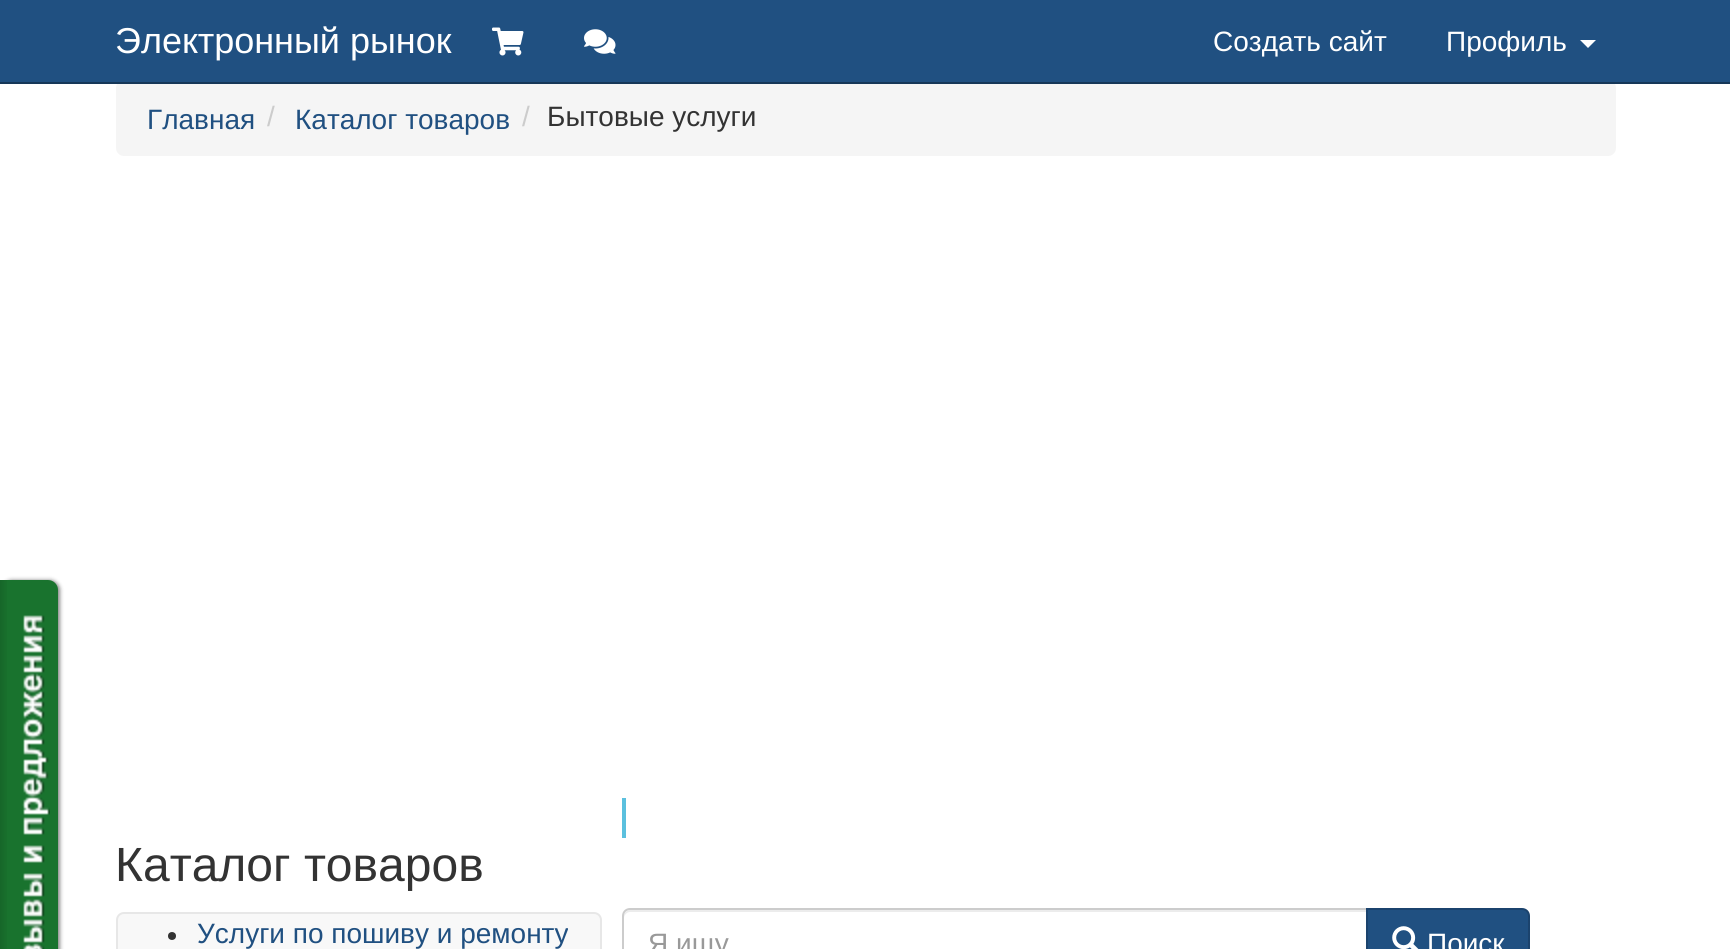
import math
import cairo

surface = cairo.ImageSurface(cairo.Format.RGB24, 1730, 949)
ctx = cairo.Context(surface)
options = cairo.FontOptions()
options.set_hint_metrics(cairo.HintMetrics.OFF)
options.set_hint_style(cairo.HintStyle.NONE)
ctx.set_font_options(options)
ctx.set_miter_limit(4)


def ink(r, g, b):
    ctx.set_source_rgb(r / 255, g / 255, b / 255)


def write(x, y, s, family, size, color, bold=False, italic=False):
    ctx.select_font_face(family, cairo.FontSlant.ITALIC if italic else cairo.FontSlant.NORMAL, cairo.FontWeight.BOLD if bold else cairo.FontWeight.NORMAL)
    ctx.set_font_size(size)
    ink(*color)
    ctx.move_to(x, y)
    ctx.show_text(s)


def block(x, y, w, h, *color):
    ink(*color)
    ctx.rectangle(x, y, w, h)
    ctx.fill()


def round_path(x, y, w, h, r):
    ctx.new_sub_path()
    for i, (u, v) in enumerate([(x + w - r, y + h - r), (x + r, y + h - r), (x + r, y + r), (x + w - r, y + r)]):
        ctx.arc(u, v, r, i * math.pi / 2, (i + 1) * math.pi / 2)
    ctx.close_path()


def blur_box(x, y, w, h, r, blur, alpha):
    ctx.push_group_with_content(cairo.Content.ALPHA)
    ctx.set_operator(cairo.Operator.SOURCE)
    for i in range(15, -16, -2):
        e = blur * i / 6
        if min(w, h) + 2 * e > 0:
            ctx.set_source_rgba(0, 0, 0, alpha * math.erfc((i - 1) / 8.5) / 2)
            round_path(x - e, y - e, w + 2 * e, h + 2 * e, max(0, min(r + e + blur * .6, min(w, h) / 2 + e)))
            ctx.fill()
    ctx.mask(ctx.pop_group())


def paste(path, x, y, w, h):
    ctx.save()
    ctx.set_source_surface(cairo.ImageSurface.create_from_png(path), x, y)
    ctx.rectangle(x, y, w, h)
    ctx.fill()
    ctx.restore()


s1 = dict(family="Liberation Sans", size=36, color=(255, 255, 255))
s2 = dict(family="Liberation Sans", size=28, color=(255, 255, 255))
s3 = dict(family="Liberation Sans", size=28, color=(32, 80, 129))
s4 = dict(family="Liberation Sans", size=28, color=(204, 204, 204))
s5 = dict(family="Liberation Sans", size=28, color=(51, 51, 51))
s6 = dict(family="Liberation Sans", size=48, color=(51, 51, 51))
s7 = dict(family="Liberation Sans", size=28, color=(153, 153, 153))

ink(255, 255, 255)
ctx.paint()
ink(245, 245, 245)
round_path(116, 80, 1500, 76, 8)
ctx.fill()
block(0, 0, 1730, 82, 32, 80, 129)
block(0, 82, 1730, 2, 22, 55, 88)
write(115, 53, "Электронный рынок", **s1)
paste("pic1.png", 492, 27, 32, 29)
paste("pic2.png", 584, 29, 32, 25)
write(1213, 51, "Создать сайт", **s2)
write(1446, 51, "Профиль", **s2)
ctx.new_path()
ctx.move_to(1580, 40)
ctx.line_to(1596, 40)
ctx.line_to(1588, 48)
ctx.close_path()
ctx.fill()
write(147, 129, "Главная", **s3)
write(267, 126, "/", **s4)
write(295, 129, "Каталог товаров", **s3)
write(522, 126, "/", **s4)
write(547, 126, "Бытовые услуги", **s5)
ink(136, 136, 136)
blur_box(2, 580, 58, 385, 10, 2, 1)
ink(25, 115, 46)
ctx.new_path()
ctx.move_to(0, 580)
ctx.line_to(48, 580)
ctx.curve_to(53.5, 580, 58, 584.5, 58, 590)
ctx.line_to(58, 949)
ctx.curve_to(58, 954.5, 53.5, 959, 48, 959)
ctx.line_to(0, 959)
ctx.close_path()
ctx.fill()
paste("pic3.png", 0, 580, 7, 369)
paste("pic4.png", 22, 615, 28, 334)
write(115, 881, "Каталог товаров", **s6)
ink(248, 248, 248)
round_path(117, 913, 484, 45, 7)
ctx.fill_preserve()
ink(231, 231, 231)
ctx.stroke()
ink(51, 51, 51)
ctx.arc(172, 936, 4, 0, 2 * math.pi)
ctx.fill()
write(197, 943, "Услуги по пошиву и ремонту", **s3)
block(622, 798, 4, 40, 91, 192, 222)
ink(236, 236, 236)
ctx.new_path()
ctx.move_to(630, 912)
ctx.line_to(1366, 912)
ctx.line_to(1366, 910)
ctx.line_to(630, 910)
ctx.curve_to(627, 910, 624, 913, 624, 916)
ctx.line_to(624, 918)
ctx.curve_to(624, 915, 627, 912, 630, 912)
ctx.close_path()
ctx.fill()
ctx.new_path()
ctx.move_to(630, 909)
ctx.line_to(1367, 909)
ctx.line_to(1367, 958)
ctx.line_to(630, 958)
ctx.curve_to(626, 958, 623, 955, 623, 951)
ctx.line_to(623, 916)
ctx.curve_to(623, 912, 626, 909, 630, 909)
ctx.close_path()
ink(204, 204, 204)
ctx.stroke()
write(648, 953, "Я ищу", **s7)
ink(32, 80, 129)
ctx.new_path()
ctx.move_to(1367, 909)
ctx.line_to(1522, 909)
ctx.curve_to(1526, 909, 1529, 912, 1529, 916)
ctx.line_to(1529, 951)
ctx.curve_to(1529, 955, 1526, 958, 1522, 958)
ctx.line_to(1367, 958)
ctx.close_path()
ctx.fill_preserve()
ink(27, 67, 109)
ctx.stroke()
paste("pic5.png", 1392, 926, 27, 23)
write(1427, 953, "Поиск", **s2)
surface.write_to_png("screenshot.png")
